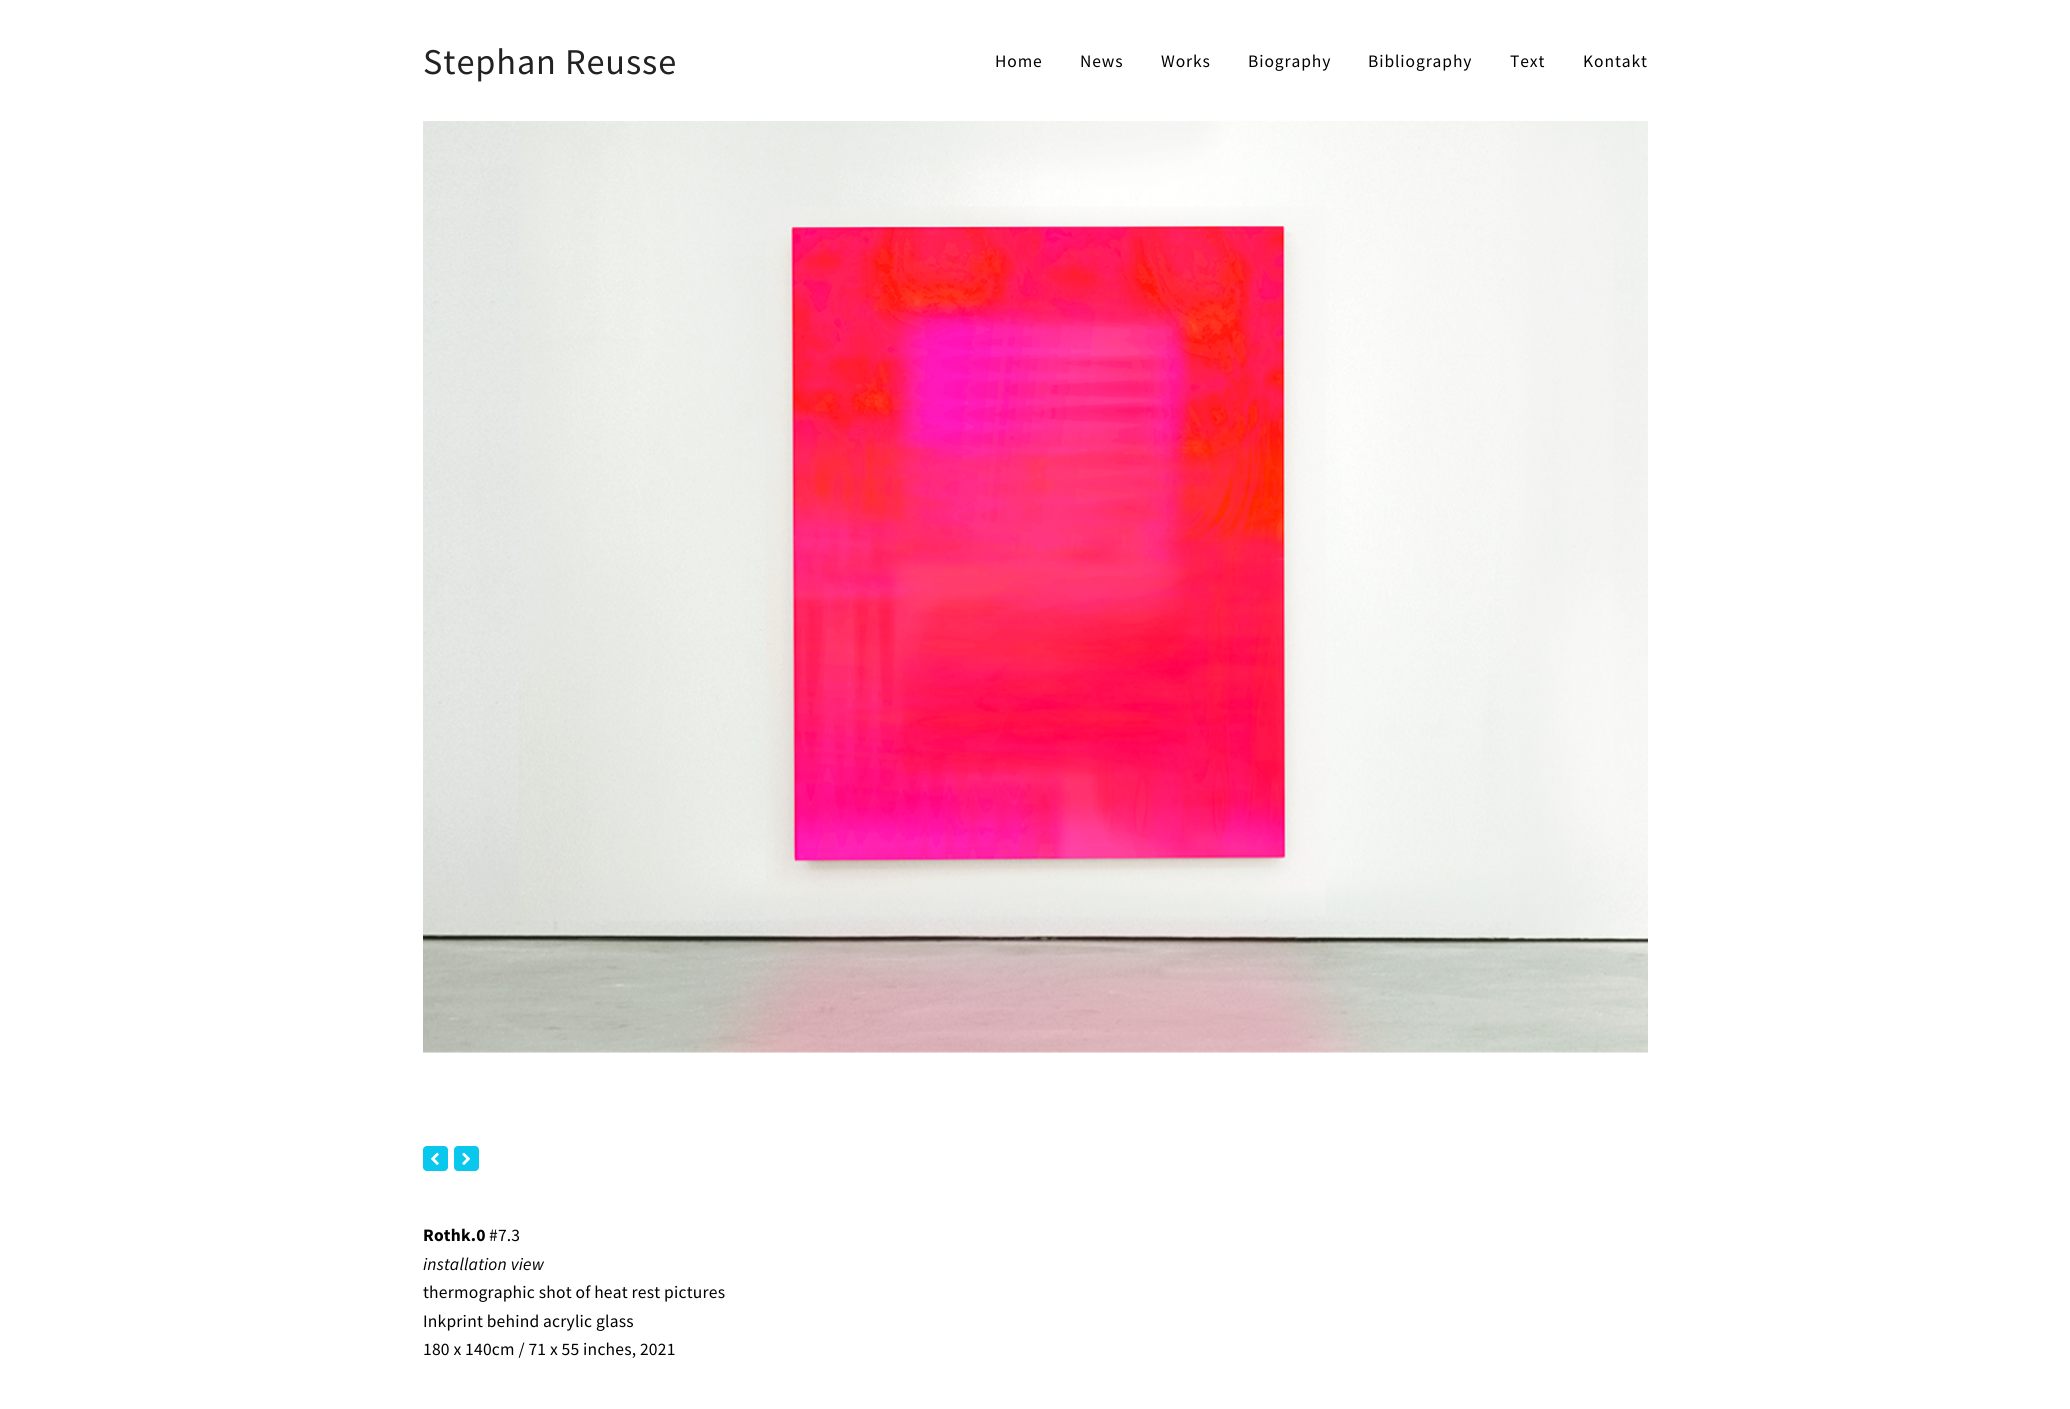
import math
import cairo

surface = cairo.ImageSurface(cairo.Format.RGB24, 2070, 1409)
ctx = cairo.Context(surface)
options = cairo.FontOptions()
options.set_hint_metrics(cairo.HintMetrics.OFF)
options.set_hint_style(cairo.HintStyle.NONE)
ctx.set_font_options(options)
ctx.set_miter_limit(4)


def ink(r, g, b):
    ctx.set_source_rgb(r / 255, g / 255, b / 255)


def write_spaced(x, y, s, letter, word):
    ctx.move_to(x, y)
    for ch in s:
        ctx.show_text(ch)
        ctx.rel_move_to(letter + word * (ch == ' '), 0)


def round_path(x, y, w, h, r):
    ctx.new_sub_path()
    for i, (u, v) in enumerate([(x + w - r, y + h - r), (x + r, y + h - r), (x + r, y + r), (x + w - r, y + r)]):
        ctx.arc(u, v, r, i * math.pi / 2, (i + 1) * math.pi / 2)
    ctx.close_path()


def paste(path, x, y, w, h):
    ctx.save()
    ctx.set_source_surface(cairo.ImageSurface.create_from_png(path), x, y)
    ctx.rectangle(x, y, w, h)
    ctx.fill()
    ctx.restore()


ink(255, 255, 255)
ctx.paint()
ctx.select_font_face("Source Sans Pro")
ctx.set_font_size(36.25)
ink(34, 34, 34)
write_spaced(423, 74, "Stephan Reusse", 0.9, 0)
ctx.set_font_size(17.5)
ink(0, 0, 0)
write_spaced(995, 67, "Home", 0.9, 0)
write_spaced(1080, 67, "News", 0.9, 0)
write_spaced(1161, 67, "Works", 0.9, 0)
write_spaced(1248, 67, "Biography", 0.9, 0)
write_spaced(1368, 67, "Bibliography", 0.9, 0)
write_spaced(1510, 67, "Text", 0.9, 0)
write_spaced(1583, 67, "Kontakt", 0.9, 0)
paste("pic1.png", 423, 121, 1225, 932)
ink(9, 199, 237)
round_path(423, 1146, 25, 25, 4)
ctx.fill()
paste("pic2.png", 431, 1152, 8, 13)
round_path(454, 1146, 25, 25, 4)
ctx.fill()
paste("pic3.png", 462, 1152, 9, 13)
ctx.select_font_face("Source Sans Pro", cairo.FontSlant.NORMAL, cairo.FontWeight.BOLD)
ink(0, 0, 0)
write_spaced(423, 1241, "Rothk.0", 0.2, 0)
ctx.select_font_face("Source Sans Pro")
write_spaced(489, 1241, "#7.3", 0.2, 0)
ctx.select_font_face("Source Sans Pro", cairo.FontSlant.ITALIC)
write_spaced(423, 1270, "installation view", 0.2, 0)
ctx.select_font_face("Source Sans Pro")
write_spaced(423, 1298, "thermographic shot of heat rest pictures", 0.2, 0)
write_spaced(423, 1327, "Inkprint behind acrylic glass", 0.2, 0)
write_spaced(423, 1355, "180 x 140cm / 71 x 55 inches, 2021", 0.2, 0)
surface.write_to_png("screenshot.png")
